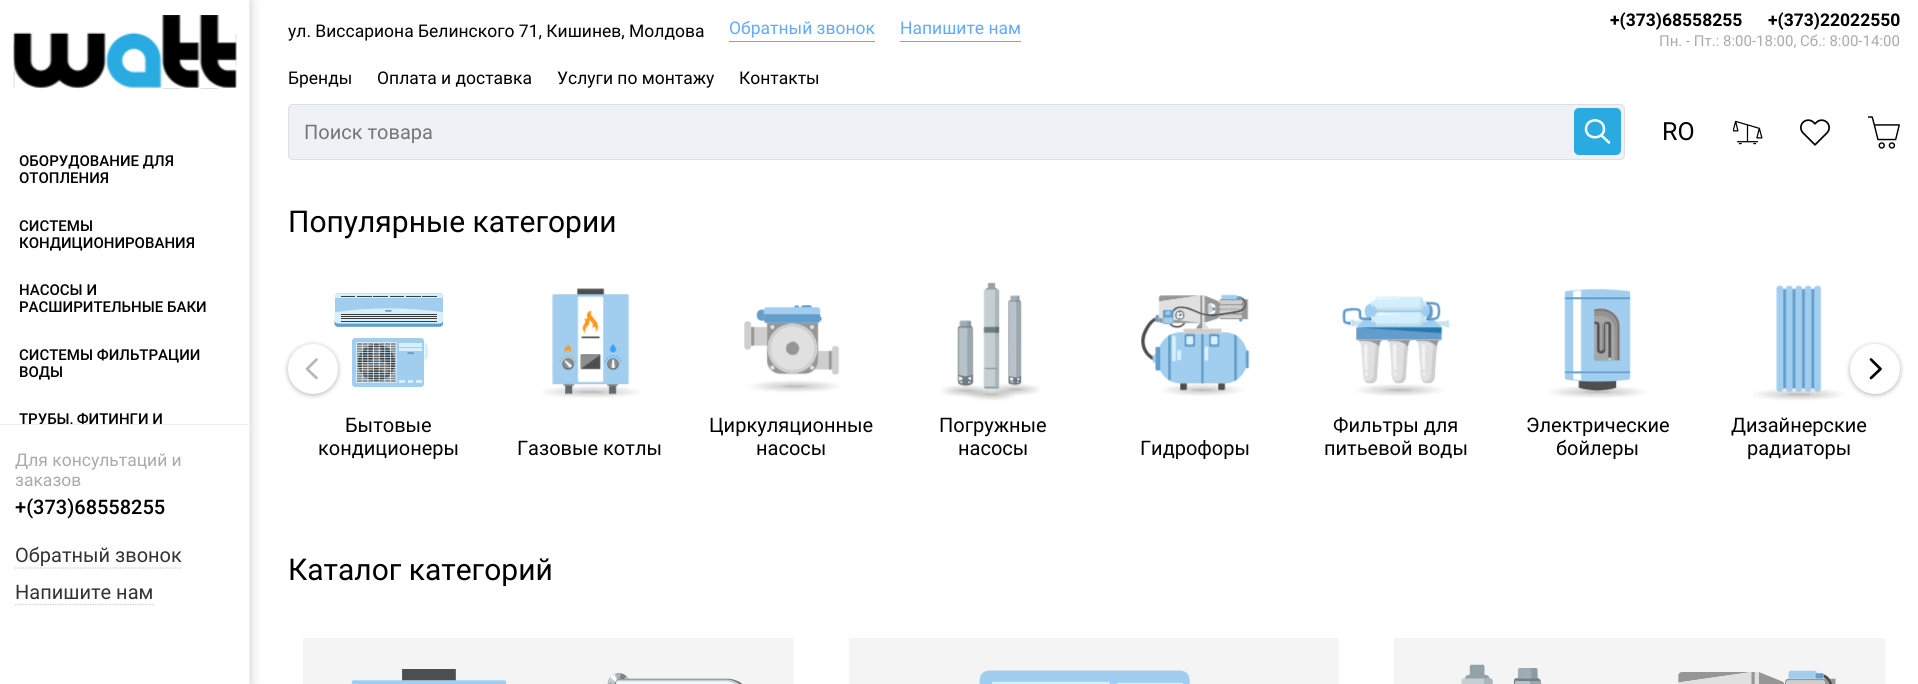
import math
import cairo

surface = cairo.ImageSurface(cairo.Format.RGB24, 1918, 684)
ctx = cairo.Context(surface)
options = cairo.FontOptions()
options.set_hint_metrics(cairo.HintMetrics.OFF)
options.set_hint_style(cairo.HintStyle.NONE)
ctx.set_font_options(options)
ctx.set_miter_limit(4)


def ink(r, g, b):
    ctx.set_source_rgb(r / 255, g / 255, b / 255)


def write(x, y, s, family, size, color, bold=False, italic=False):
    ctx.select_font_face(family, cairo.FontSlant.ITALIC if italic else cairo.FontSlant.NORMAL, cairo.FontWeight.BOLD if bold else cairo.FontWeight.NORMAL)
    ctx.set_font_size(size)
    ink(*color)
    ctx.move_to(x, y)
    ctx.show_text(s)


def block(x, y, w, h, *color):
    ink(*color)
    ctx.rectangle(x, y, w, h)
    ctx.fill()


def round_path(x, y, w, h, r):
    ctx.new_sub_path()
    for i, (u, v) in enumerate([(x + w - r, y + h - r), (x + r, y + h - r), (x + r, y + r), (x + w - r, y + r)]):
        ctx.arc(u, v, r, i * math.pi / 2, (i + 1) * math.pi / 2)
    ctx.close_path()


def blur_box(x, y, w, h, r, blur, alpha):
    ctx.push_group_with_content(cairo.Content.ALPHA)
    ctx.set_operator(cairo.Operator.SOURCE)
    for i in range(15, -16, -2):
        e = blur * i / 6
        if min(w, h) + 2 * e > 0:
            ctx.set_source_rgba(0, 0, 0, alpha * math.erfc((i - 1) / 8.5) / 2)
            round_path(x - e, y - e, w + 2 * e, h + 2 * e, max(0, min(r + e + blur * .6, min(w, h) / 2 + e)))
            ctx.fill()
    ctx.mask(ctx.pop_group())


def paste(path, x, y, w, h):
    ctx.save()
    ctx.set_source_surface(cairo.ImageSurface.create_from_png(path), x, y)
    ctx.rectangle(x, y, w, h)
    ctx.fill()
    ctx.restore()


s1 = dict(family="Roboto", size=17.5, color=(0, 0, 0))
s2 = dict(family="Roboto", size=17.5, color=(98, 170, 255))
s3 = dict(family="Roboto", size=17.5, color=(0, 0, 0), bold=True)
s4 = dict(family="Roboto", size=15, color=(170, 170, 170))
s5 = dict(family="Roboto", size=20, color=(117, 117, 117))
s6 = dict(family="Roboto", size=25, color=(0, 0, 0))
s7 = dict(family="Roboto Medium", size=15, color=(0, 0, 0))
s8 = dict(family="Roboto", size=17.5, color=(170, 170, 170))
s9 = dict(family="Roboto Medium", size=20, color=(0, 0, 0))
s10 = dict(family="Roboto", size=20, color=(51, 51, 51))
s11 = dict(family="Roboto", size=30, color=(0, 0, 0))
s12 = dict(family="Roboto", size=20, color=(0, 0, 0))

ink(255, 255, 255)
ctx.paint()
write(288, 37, "ул. Виссариона Белинского 71, Кишинев, Молдова", **s1)
block(729, 41, 146, 1, 98, 170, 255)
write(729, 34, "Обратный звонок", **s2)
block(900, 41, 121, 1, 98, 170, 255)
write(900, 34, "Напишите нам", **s2)
write(1610, 26, "+(373)68558255", **s3)
write(1768, 26, "+(373)22022550", **s3)
write(1659, 46, "Пн. - Пт.: 8:00-18:00, Сб.: 8:00-14:00", **s4)
write(288, 84, "Бренды", **s1)
write(377, 84, "Оплата и доставка", **s1)
write(557, 84, "Услуги по монтажу", **s1)
write(739, 84, "Контакты", **s1)
ink(238, 242, 246)
round_path(288.5, 104.5, 1336, 55, 4.5)
ctx.fill_preserve()
ink(223, 222, 226)
ctx.set_line_width(1)
ctx.stroke()
write(304, 139, "Поиск товара", **s5)
ink(41, 171, 226)
round_path(1574, 108, 47, 47, 5)
ctx.fill()
ctx.new_path()
ctx.move_to(1609, 142.5)
ctx.line_to(1601, 135)
ctx.move_to(1604, 129)
ctx.curve_to(1604, 140, 1586, 140, 1586, 129)
ctx.curve_to(1586, 117.5, 1604, 117.5, 1604, 129)
ctx.close_path()
ink(255, 255, 255)
ctx.set_line_width(2.5)
ctx.set_line_cap(cairo.LineCap.ROUND)
ctx.set_line_join(cairo.LineJoin.ROUND)
ctx.stroke()
write(1662, 140, "RO", **s6)
paste("pic1.png", 1733, 120, 30, 25)
paste("pic2.png", 1800, 119, 30, 27)
paste("pic3.png", 1868, 116, 32, 33)
ctx.save()
ctx.rectangle(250, 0, 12, 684)
ctx.clip()
ink(204, 204, 204)
blur_box(0, 0, 250, 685, 0, 6, 1)
ctx.restore()
block(249, 0, 1, 684, 239, 239, 239)
paste("pic4.png", 13, 15, 224, 74)
write(19, 166, "ОБОРУДОВАНИЕ ДЛЯ", **s7)
write(19, 183, "ОТОПЛЕНИЯ", **s7)
write(19, 231, "СИСТЕМЫ", **s7)
write(19, 248, "КОНДИЦИОНИРОВАНИЯ", **s7)
write(19, 295, "НАСОСЫ И", **s7)
write(19, 312, "РАСШИРИТЕЛЬНЫЕ БАКИ", **s7)
write(19, 360, "СИСТЕМЫ ФИЛЬТРАЦИИ", **s7)
write(19, 377, "ВОДЫ", **s7)
ctx.save()
ctx.rectangle(0, 139, 249, 285)
ctx.clip()
write(19, 424, "ТРУБЫ, ФИТИНГИ И", **s7)
ctx.restore()
block(0, 424, 249, 1, 239, 239, 239)
write(15, 466, "Для консультаций и", **s8)
write(15, 486, "заказов", **s8)
write(15, 514, "+(373)68558255", **s9)
ctx.new_path()
ctx.move_to(15, 568)
ctx.line_to(181, 568)
ink(204, 204, 204)
ctx.set_line_width(1.2)
ctx.set_line_cap(cairo.LineCap.BUTT)
ctx.set_line_join(cairo.LineJoin.MITER)
ctx.set_dash([1.25, 1.25])
ctx.stroke()
write(15, 562, "Обратный звонок", **s10)
ctx.new_path()
ctx.move_to(15, 604.5)
ctx.line_to(154, 604.5)
ink(204, 204, 204)
ctx.stroke()
write(15, 599, "Напишите нам", **s10)
write(288, 232, "Популярные категории", **s11)
paste("pic5.png", 334, 293, 109, 94)
ink(0, 0, 0)
blur_box(288, 345, 50, 50, 25, 2.5, 0.3)
ink(255, 255, 255)
ctx.arc(313, 369, 25, 0, 2 * math.pi)
ctx.fill()
ctx.new_path()
ctx.move_to(316.5, 378)
ctx.line_to(307, 369)
ctx.line_to(316.5, 359.5)
ink(183, 183, 183)
ctx.set_line_width(2.7)
ctx.set_line_cap(cairo.LineCap.ROUND)
ctx.set_line_join(cairo.LineJoin.ROUND)
ctx.set_dash([])
ctx.stroke()
paste("pic12.png", 1753, 285, 91, 116)
ink(0, 0, 0)
blur_box(1850, 345, 50, 50, 25, 2.5, 0.3)
ink(255, 255, 255)
ctx.arc(1875, 369, 25, 0, 2 * math.pi)
ctx.fill()
ctx.new_path()
ctx.move_to(1871, 359.5)
ctx.line_to(1880.5, 369)
ctx.line_to(1871, 378)
ink(0, 0, 0)
ctx.stroke()
write(345, 432, "Бытовые", **s12)
write(318, 455, "кондиционеры", **s12)
paste("pic6.png", 542, 288, 98, 110)
write(517, 455, "Газовые котлы", **s12)
paste("pic7.png", 744, 305, 96, 88)
write(709, 432, "Циркуляционные", **s12)
write(756, 455, "насосы", **s12)
paste("pic8.png", 941, 282, 100, 119)
write(939, 432, "Погружные", **s12)
write(958, 455, "насосы", **s12)
paste("pic9.png", 1141, 294, 109, 102)
write(1140, 455, "Гидрофоры", **s12)
paste("pic10.png", 1342, 296, 109, 100)
write(1333, 432, "Фильтры для", **s12)
write(1324, 455, "питьевой воды", **s12)
paste("pic11.png", 1548, 289, 100, 109)
write(1526, 432, "Электрические", **s12)
write(1556, 455, "бойлеры", **s12)
write(1731, 432, "Дизайнерские", **s12)
write(1747, 455, "радиаторы", **s12)
write(288, 580, "Каталог категорий", **s11)
paste("pic13.png", 303, 638, 491, 46)
paste("pic14.png", 849, 638, 490, 46)
paste("pic15.png", 1394, 638, 491, 46)
surface.write_to_png("screenshot.png")
